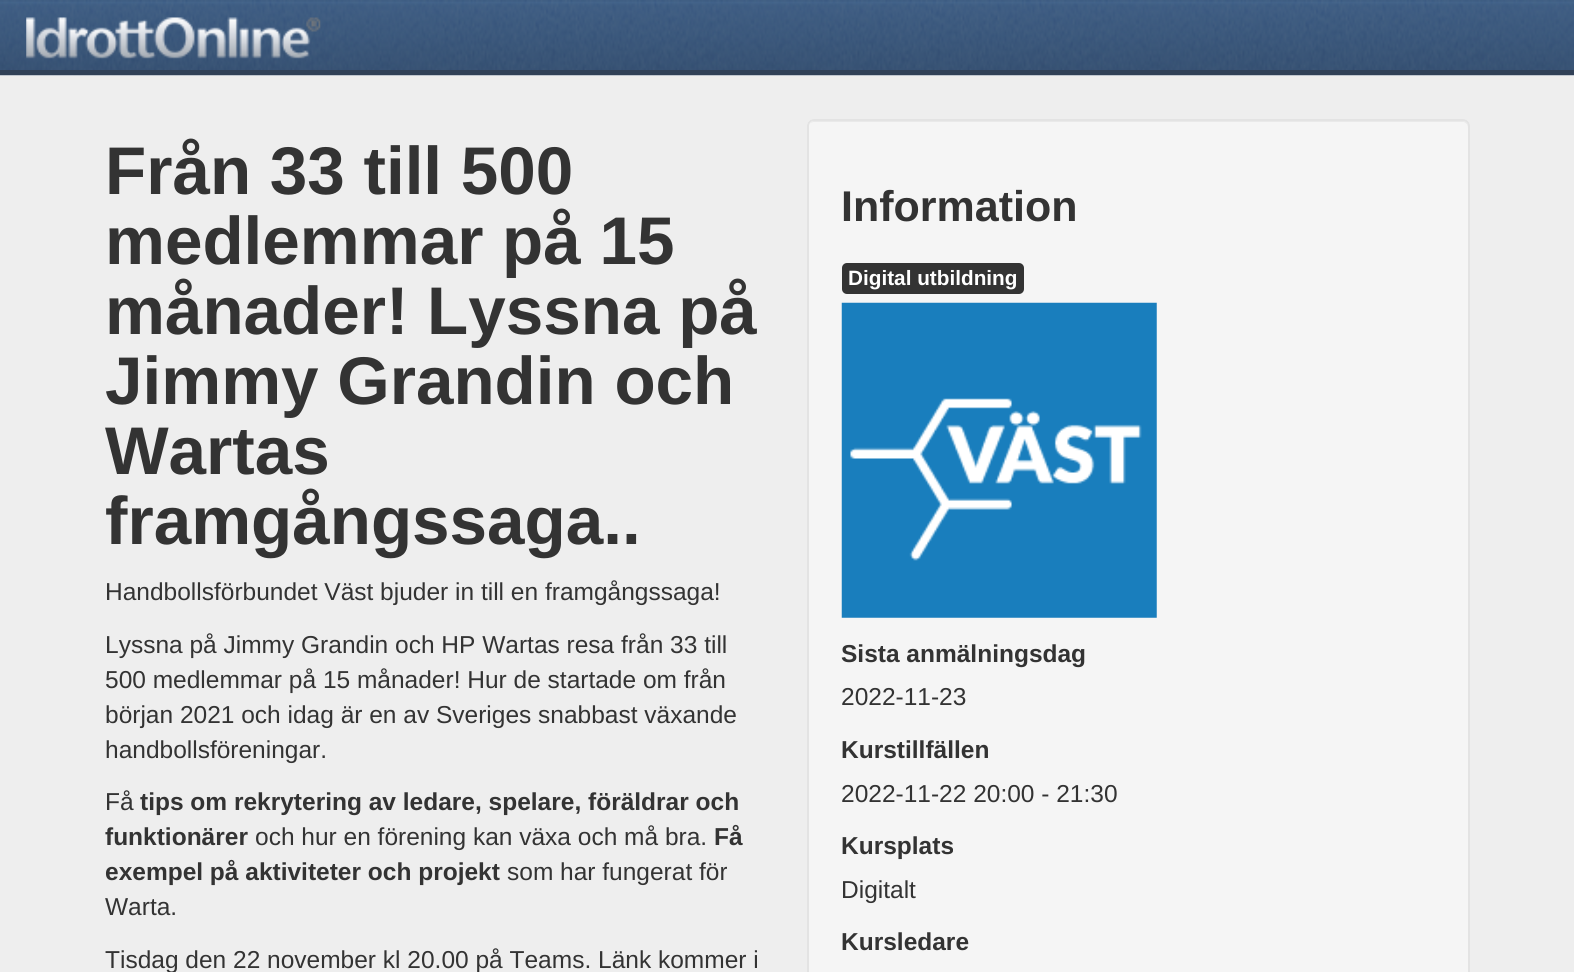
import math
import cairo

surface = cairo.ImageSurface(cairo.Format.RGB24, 1574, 972)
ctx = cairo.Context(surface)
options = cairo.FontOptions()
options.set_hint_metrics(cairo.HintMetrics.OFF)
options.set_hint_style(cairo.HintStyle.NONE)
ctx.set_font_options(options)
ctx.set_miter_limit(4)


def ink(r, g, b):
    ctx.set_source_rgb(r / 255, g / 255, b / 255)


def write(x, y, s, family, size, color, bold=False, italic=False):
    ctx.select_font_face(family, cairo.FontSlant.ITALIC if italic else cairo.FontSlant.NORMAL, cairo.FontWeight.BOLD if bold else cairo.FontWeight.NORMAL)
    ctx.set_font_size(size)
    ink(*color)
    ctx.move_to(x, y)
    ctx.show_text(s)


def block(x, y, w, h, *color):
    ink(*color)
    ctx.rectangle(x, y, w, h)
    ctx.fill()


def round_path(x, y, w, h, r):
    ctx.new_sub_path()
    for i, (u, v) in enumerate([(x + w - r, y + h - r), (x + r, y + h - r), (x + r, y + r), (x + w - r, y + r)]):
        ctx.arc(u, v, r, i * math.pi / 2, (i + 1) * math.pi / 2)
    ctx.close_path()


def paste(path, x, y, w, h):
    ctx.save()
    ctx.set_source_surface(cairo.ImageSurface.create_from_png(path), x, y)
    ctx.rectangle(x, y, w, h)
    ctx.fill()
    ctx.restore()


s1 = dict(family="Liberation Sans", size=67.4, color=(51, 51, 51), bold=True)
s2 = dict(family="Liberation Sans", size=24.5, color=(51, 51, 51))
s3 = dict(family="Liberation Sans", size=24.5, color=(51, 51, 51), bold=True)
s4 = dict(family="Liberation Sans", size=43, color=(51, 51, 51), bold=True)
s5 = dict(family="Liberation Sans", size=20.75, color=(255, 255, 255), bold=True)

ink(238, 238, 238)
ctx.paint()
paste("pic1.png", 0, 0, 1574, 76)
block(0, 70, 1574, 5, 49, 65, 87)
paste("pic2.png", 26, 17, 295, 42)
write(105, 194, "Från 33 till 500", **s1)
write(105, 264, "medlemmar på 15", **s1)
write(105, 334, "månader! Lyssna på", **s1)
write(105, 404, "Jimmy Grandin och", **s1)
write(105, 474, "Wartas", **s1)
write(105, 544, "framgångssaga..", **s1)
write(105, 600, "Handbollsförbundet Väst bjuder in till en framgångssaga!", **s2)
write(105, 653, "Lyssna på Jimmy Grandin och HP Wartas resa från 33 till", **s2)
write(105, 688, "500 medlemmar på 15 månader! Hur de startade om från", **s2)
write(105, 723, "början 2021 och idag är en av Sveriges snabbast växande", **s2)
write(105, 758, "handbollsföreningar.", **s2)
write(105, 810, "Få", **s2)
write(140, 810, "tips om rekrytering av ledare, spelare, föräldrar och", **s3)
write(105, 845, "funktionärer", **s3)
write(255, 845, "och hur en förening kan växa och må bra.", **s2)
write(714, 845, "Få", **s3)
write(105, 880, "exempel på aktiviteter och projekt", **s3)
write(507, 880, "som har fungerat för", **s2)
write(105, 915, "Warta.", **s2)
write(105, 968, "Tisdag den 22 november kl 20.00 på Teams. Länk kommer i", **s2)
ink(245, 245, 245)
round_path(807, 119, 663, 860, 7)
ctx.fill()
ink(233, 233, 233)
ctx.new_path()
ctx.move_to(814, 122)
ctx.line_to(1463, 122)
ctx.curve_to(1466, 122, 1468, 125, 1468, 128)
ctx.line_to(1468, 126)
ctx.curve_to(1468, 123, 1466, 121, 1463, 121)
ctx.line_to(814, 121)
ctx.curve_to(812, 121, 810, 123, 809, 125)
ctx.curve_to(810, 123, 812, 122, 814, 122)
ctx.close_path()
ctx.fill()
round_path(808, 120, 661, 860, 6)
ink(227, 227, 227)
ctx.stroke()
write(841, 221, "Information", **s4)
round_path(842, 263, 182, 31, 5)
ctx.fill()
write(848, 285, "Digital utbildning", **s5)
paste("pic3.png", 841, 302, 316, 316)
write(841, 662, "Sista anmälningsdag", **s3)
write(841, 705, "2022-11-23", **s2)
write(841, 758, "Kurstillfällen", **s3)
write(841, 802, "2022-11-22 20:00 - 21:30", **s2)
write(841, 854, "Kursplats", **s3)
write(841, 898, "Digitalt", **s2)
write(841, 950, "Kursledare", **s3)
surface.write_to_png("screenshot.png")
